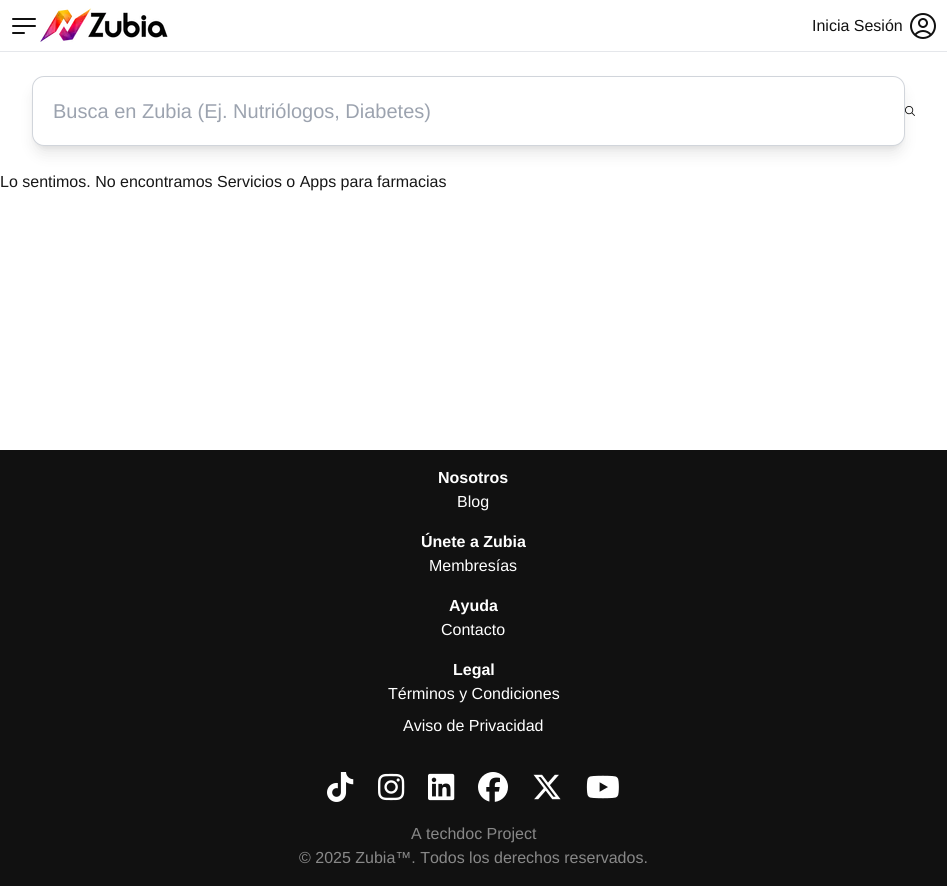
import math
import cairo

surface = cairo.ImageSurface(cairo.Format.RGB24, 947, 886)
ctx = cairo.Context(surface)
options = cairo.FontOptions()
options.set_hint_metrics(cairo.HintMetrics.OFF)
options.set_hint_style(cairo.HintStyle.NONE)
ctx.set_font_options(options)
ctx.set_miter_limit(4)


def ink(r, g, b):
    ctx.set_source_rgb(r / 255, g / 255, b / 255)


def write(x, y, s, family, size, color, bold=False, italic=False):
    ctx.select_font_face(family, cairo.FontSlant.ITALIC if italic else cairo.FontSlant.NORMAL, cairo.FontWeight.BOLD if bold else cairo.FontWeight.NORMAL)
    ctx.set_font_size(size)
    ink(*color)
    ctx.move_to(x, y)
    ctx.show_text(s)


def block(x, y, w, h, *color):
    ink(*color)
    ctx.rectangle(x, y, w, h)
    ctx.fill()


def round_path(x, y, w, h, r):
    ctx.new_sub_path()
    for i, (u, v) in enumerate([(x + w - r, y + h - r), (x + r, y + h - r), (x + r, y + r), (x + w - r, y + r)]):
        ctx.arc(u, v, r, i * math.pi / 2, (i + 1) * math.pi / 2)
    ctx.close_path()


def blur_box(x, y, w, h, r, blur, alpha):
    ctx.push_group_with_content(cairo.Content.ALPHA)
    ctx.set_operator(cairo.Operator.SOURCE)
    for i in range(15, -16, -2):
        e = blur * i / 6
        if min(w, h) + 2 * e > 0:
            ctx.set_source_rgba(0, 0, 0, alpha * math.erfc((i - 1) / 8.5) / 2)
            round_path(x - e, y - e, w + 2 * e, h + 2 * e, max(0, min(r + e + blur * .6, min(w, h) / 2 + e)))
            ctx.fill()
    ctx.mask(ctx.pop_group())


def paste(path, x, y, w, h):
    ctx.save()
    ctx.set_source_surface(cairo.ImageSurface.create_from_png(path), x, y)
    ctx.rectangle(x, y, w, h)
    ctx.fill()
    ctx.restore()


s1 = dict(family="Liberation Sans", size=16, color=(17, 17, 17))
s2 = dict(family="Liberation Sans", size=20, color=(156, 163, 175))
s3 = dict(family="Liberation Sans", size=16, color=(23, 23, 23))
s4 = dict(family="Liberation Sans", size=16, color=(255, 255, 255), bold=True)
s5 = dict(family="Liberation Sans", size=16, color=(255, 255, 255))
s6 = dict(family="Liberation Sans", size=16, color=(136, 136, 136))

ink(255, 255, 255)
ctx.paint()
block(0, 51, 947, 1, 229, 231, 235)
ctx.new_path()
ctx.move_to(13, 19)
ctx.line_to(35, 19)
ctx.move_to(13, 26)
ctx.line_to(35, 26)
ctx.move_to(13, 33)
ctx.line_to(24, 33)
ink(17, 17, 17)
ctx.set_line_cap(cairo.LineCap.ROUND)
ctx.set_line_join(cairo.LineJoin.ROUND)
ctx.stroke()
paste("pic1.png", 40, 8, 128, 34)
write(812, 31, "Inicia Sesión", **s1)
paste("pic2.png", 910, 13, 26, 26)
ink(0, 0, 0)
blur_box(36, 84, 865, 62, 8, 3, 0.1)
blur_box(35, 89, 867, 64, 9, 7.5, 0.1)
ink(255, 255, 255)
round_path(32.5, 76.5, 872, 69, 11.5)
ctx.fill_preserve()
ink(209, 213, 219)
ctx.set_line_width(1)
ctx.set_line_cap(cairo.LineCap.BUTT)
ctx.set_line_join(cairo.LineJoin.MITER)
ctx.stroke()
write(53, 118, "Busca en Zubia (Ej. Nutriólogos, Diabetes)", **s2)
paste("pic3.png", 905, 106, 10, 10)
write(0, 187, "Lo sentimos. No encontramos Servicios o Apps para farmacias", **s3)
block(0, 450, 947, 436, 17, 17, 17)
write(438, 483, "Nosotros", **s4)
write(457, 507, "Blog", **s5)
write(421, 547, "Únete a Zubia", **s4)
write(429, 571, "Membresías", **s5)
write(449, 611, "Ayuda", **s4)
write(441, 635, "Contacto", **s5)
write(453, 675, "Legal", **s4)
write(388, 699, "Términos y Condiciones", **s5)
write(403, 731, "Aviso de Privacidad", **s5)
paste("pic4.png", 327, 772, 27, 30)
paste("pic5.png", 378, 773, 27, 28)
paste("pic6.png", 428, 773, 27, 28)
paste("pic7.png", 478, 772, 30, 30)
paste("pic8.png", 533, 774, 28, 26)
paste("pic9.png", 586, 775, 33, 24)
write(411, 839, "A techdoc Project", **s6)
write(299, 863, "© 2025 Zubia™. Todos los derechos reservados.", **s6)
surface.write_to_png("screenshot.png")
